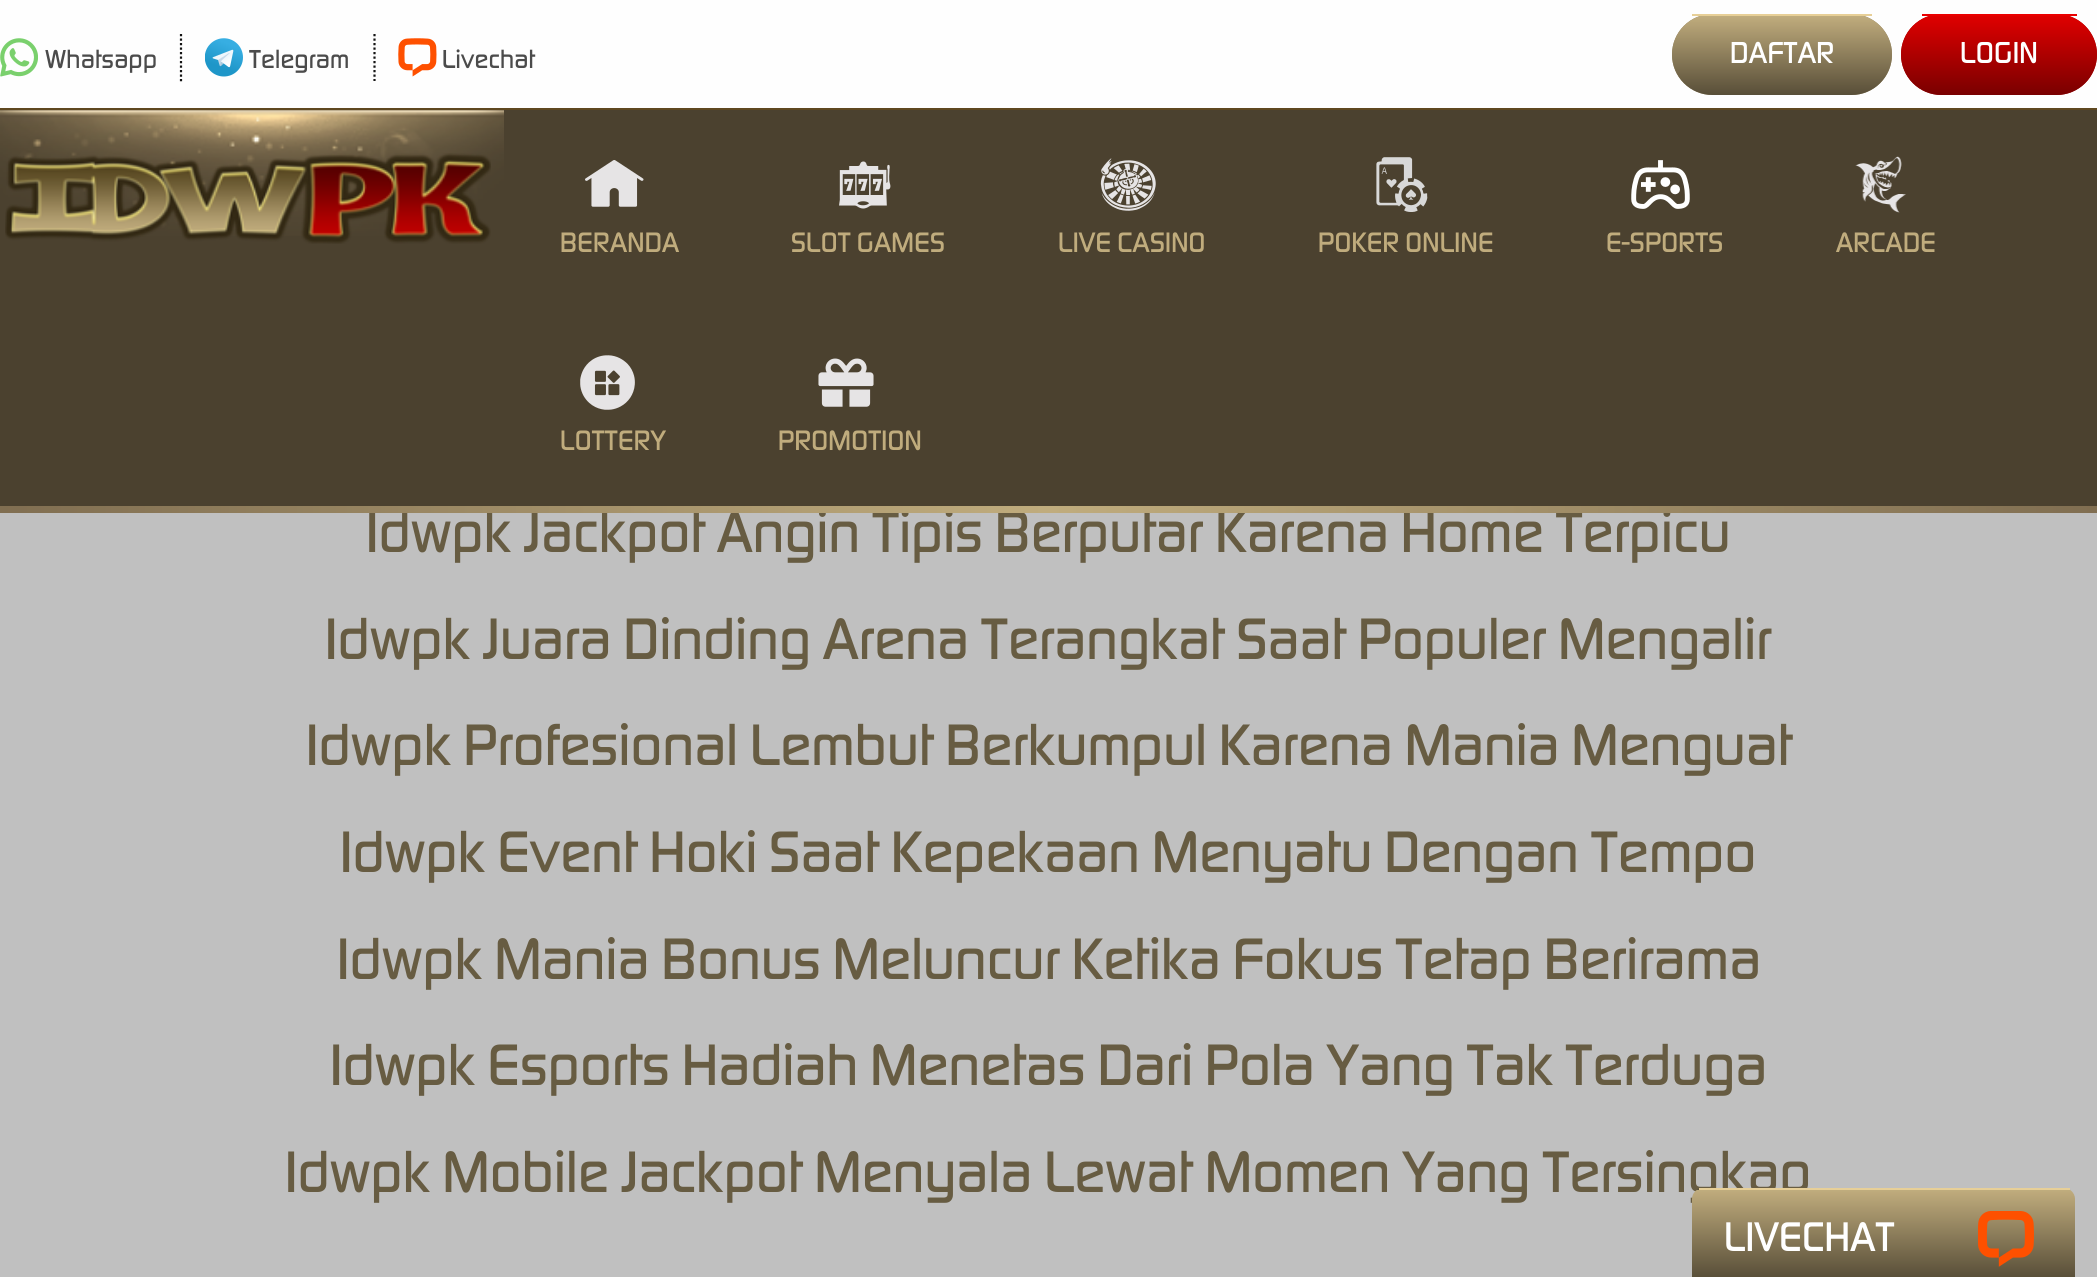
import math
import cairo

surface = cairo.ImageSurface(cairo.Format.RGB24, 2097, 1277)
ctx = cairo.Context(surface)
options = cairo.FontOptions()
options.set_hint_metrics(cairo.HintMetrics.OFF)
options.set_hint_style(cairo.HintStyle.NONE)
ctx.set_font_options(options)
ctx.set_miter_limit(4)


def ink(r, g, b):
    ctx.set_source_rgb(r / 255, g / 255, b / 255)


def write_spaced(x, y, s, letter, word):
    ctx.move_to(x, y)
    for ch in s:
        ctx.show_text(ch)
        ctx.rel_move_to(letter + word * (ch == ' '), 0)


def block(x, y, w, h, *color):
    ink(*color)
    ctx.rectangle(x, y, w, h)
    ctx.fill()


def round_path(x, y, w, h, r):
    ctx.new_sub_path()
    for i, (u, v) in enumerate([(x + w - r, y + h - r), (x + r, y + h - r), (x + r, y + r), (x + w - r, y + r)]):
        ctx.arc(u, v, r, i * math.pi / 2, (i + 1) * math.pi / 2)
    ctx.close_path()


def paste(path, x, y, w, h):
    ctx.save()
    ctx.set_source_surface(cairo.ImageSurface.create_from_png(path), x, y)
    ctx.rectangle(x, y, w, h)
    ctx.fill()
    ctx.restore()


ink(192, 192, 192)
ctx.paint()
block(0, 0, 2097, 108, 254, 254, 254)
ctx.new_path()
ctx.move_to(181, 34)
ctx.line_to(181, 83)
ink(20, 20, 20)
ctx.set_line_width(2.2)
ctx.set_dash([2.25, 2.25])
ctx.stroke()
paste("pic1.png", 0, 38, 38, 39)
ctx.select_font_face("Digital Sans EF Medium")
ctx.set_font_size(27)
ink(75, 75, 75)
write_spaced(45, 68, "Whatsapp", 0.23, 0)
ctx.save()
ctx.rectangle(0, 0, 558, 81)
ctx.clip()
ctx.new_path()
ctx.move_to(374.5, 34)
ctx.line_to(374.5, 83)
ink(20, 20, 20)
ctx.stroke()
ctx.restore()
paste("pic2.png", 205, 38, 38, 39)
write_spaced(249, 68, "Telegram", 0.23, 0)
paste("pic3.png", 398, 38, 39, 39)
write_spaced(442, 68, "Livechat", 0.23, 0)
ink(147, 131, 95)
round_path(1672, 14, 220, 81, 40.5)
ctx.fill()
ctx.save()
round_path(1672, 14, 220, 81, 40.5)
ctx.clip()
gradient = cairo.LinearGradient(1782, 16, 1782, 95)
gradient.add_color_stop_rgba(0, 0.753, 0.675, 0.49, 1)
gradient.add_color_stop_rgba(1, 0.345, 0.306, 0.22, 1)
ctx.set_source(gradient)
ctx.new_path()
ctx.move_to(1672, 16)
ctx.line_to(1892, 16)
ctx.line_to(1892, 54.5)
ctx.curve_to(1892, 77, 1874, 95, 1851.5, 95)
ctx.line_to(1712.5, 95)
ctx.curve_to(1690, 95, 1672, 77, 1672, 54.5)
ctx.close_path()
ctx.fill()
ctx.restore()
block(1692, 14, 180, 2, 231, 207, 151)
ctx.set_font_size(31.5)
ink(255, 255, 255)
write_spaced(1730, 63, "DAFTAR", 0.23, 0)
ink(160, 0, 0)
round_path(1901, 14, 196, 81, 40.5)
ctx.fill()
ctx.save()
round_path(1901, 14, 196, 81, 40.5)
ctx.clip()
gradient = cairo.LinearGradient(1999, 16, 1999, 95)
gradient.add_color_stop_rgba(0, 0.875, 0, 0, 1)
gradient.add_color_stop_rgba(1, 0.475, 0, 0, 1)
ctx.set_source(gradient)
ctx.new_path()
ctx.move_to(1901, 16)
ctx.line_to(2097, 16)
ctx.line_to(2097, 54.5)
ctx.curve_to(2097, 77, 2079, 95, 2056.5, 95)
ctx.line_to(1941.5, 95)
ctx.curve_to(1919, 95, 1901, 77, 1901, 54.5)
ctx.close_path()
ctx.fill()
ctx.restore()
block(1922, 14, 155, 2, 234, 0, 0)
ink(255, 255, 255)
write_spaced(1960, 63, "LOGIN", 0.23, 0)
block(0, 110, 2097, 396, 75, 65, 47)
block(0, 108, 2097, 2, 95, 72, 32)
paste("pic4.png", 0, 110, 504, 126)
paste("pic5.png", 5, 153, 486, 91)
paste("pic6.png", 585, 160, 59, 47)
ctx.set_font_size(29.25)
ink(192, 172, 125)
write_spaced(560, 252, "BERANDA", 0.23, 0)
paste("pic7.png", 839, 161, 52, 48)
write_spaced(791, 252, "SLOT GAMES", 0.23, 0)
paste("pic8.png", 1100, 158, 56, 53)
write_spaced(1058, 252, "LIVE CASINO", 0.23, 0)
paste("pic9.png", 1376, 157, 52, 55)
write_spaced(1318, 252, "POKER ONLINE", 0.23, 0)
paste("pic10.png", 1631, 160, 59, 49)
write_spaced(1606, 252, "E-SPORTS", 0.23, 0)
paste("pic11.png", 1855, 156, 51, 57)
write_spaced(1836, 252, "ARCADE", 0.23, 0)
paste("pic12.png", 580, 355, 55, 55)
write_spaced(560, 450, "LOTTERY", 0.23, 0)
paste("pic13.png", 818, 358, 56, 49)
write_spaced(778, 450, "PROMOTION", 0.23, 0)
ctx.set_font_size(60.75)
ink(103, 92, 66)
write_spaced(366, 552, "Idwpk Jackpot Angin Tipis Berputar Karena Home Terpicu", 0.23, 0)
gradient = cairo.LinearGradient(0, 510, 2097, 510)
gradient.add_color_stop_rgba(0, 0.502, 0.431, 0.318, 1)
gradient.add_color_stop_rgba(0.5, 0.753, 0.675, 0.49, 1)
gradient.add_color_stop_rgba(1, 0.502, 0.431, 0.318, 1)
ctx.set_source(gradient)
ctx.rectangle(0, 506, 2097, 7)
ctx.fill()
ink(103, 92, 66)
write_spaced(325, 659, "Idwpk Juara Dinding Arena Terangkat Saat Populer Mengalir", 0.23, 0)
write_spaced(306, 765, "Idwpk Profesional Lembut Berkumpul Karena Mania Menguat", 0.23, 0)
write_spaced(340, 872, "Idwpk Event Hoki Saat Kepekaan Menyatu Dengan Tempo", 0.23, 0)
write_spaced(337, 979, "Idwpk Mania Bonus Meluncur Ketika Fokus Tetap Berirama", 0.23, 0)
write_spaced(330, 1085, "Idwpk Esports Hadiah Menetas Dari Pola Yang Tak Terduga", 0.23, 0)
write_spaced(285, 1192, "Idwpk Mobile Jackpot Menyala Lewat Momen Yang Tersingkap", 0.23, 0)
ctx.save()
ctx.new_path()
ctx.move_to(1703, 1188)
ctx.line_to(2064, 1188)
ctx.curve_to(2070, 1188, 2075, 1193, 2075, 1199)
ctx.line_to(2075, 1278)
ctx.line_to(1692, 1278)
ctx.line_to(1692, 1199)
ctx.curve_to(1692, 1193, 1697, 1188, 1703, 1188)
ctx.close_path()
ctx.clip()
gradient = cairo.LinearGradient(1883, 1103, 1883, 1190)
gradient.add_color_stop_rgba(0, 0.753, 0.675, 0.49, 1)
gradient.add_color_stop_rgba(1, 0.345, 0.306, 0.22, 1)
ctx.set_source(gradient)
ctx.rectangle(1692, 1188, 383, 2)
ctx.fill()
gradient = cairo.LinearGradient(1883, 1190, 1883, 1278)
gradient.add_color_stop_rgba(0, 0.753, 0.675, 0.49, 1)
gradient.add_color_stop_rgba(1, 0.345, 0.306, 0.22, 1)
ctx.set_source(gradient)
ctx.rectangle(1692, 1190, 383, 87)
ctx.fill()
ctx.restore()
block(1699, 1188, 371, 2, 231, 207, 151)
ctx.set_font_size(43)
ink(255, 255, 255)
write_spaced(1724, 1251, "LIVECHAT", 0.23, 0)
paste("pic14.png", 1978, 1211, 56, 56)
surface.write_to_png("screenshot.png")
